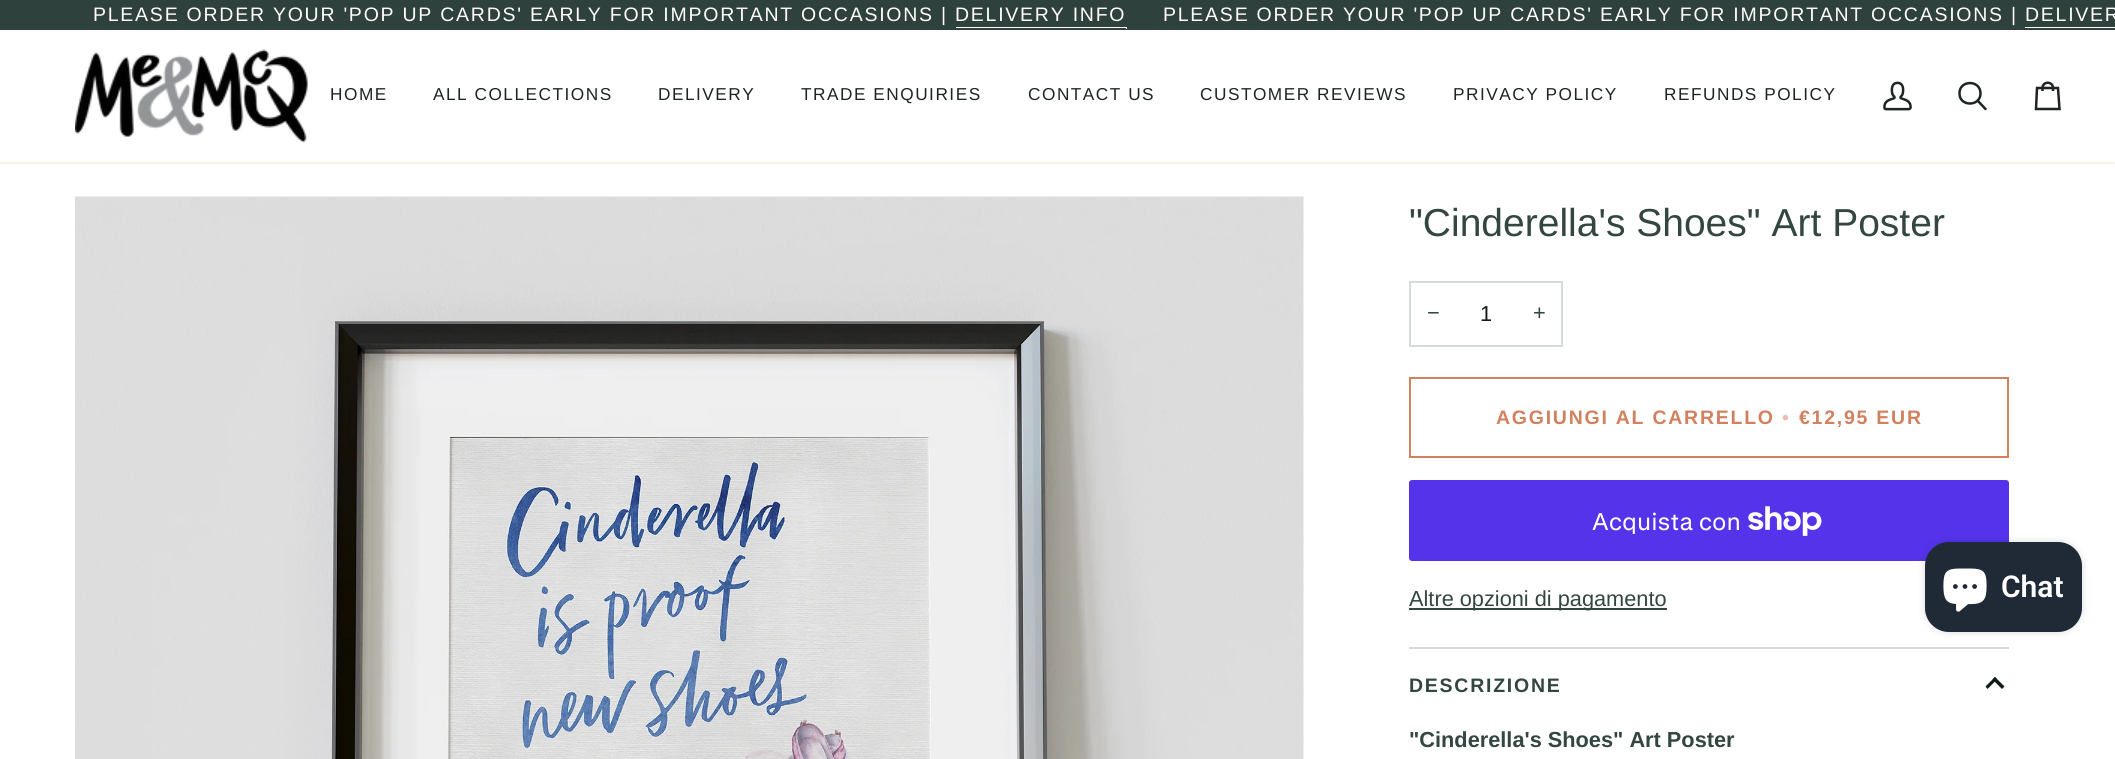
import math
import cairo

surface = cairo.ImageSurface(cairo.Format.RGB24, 2115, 759)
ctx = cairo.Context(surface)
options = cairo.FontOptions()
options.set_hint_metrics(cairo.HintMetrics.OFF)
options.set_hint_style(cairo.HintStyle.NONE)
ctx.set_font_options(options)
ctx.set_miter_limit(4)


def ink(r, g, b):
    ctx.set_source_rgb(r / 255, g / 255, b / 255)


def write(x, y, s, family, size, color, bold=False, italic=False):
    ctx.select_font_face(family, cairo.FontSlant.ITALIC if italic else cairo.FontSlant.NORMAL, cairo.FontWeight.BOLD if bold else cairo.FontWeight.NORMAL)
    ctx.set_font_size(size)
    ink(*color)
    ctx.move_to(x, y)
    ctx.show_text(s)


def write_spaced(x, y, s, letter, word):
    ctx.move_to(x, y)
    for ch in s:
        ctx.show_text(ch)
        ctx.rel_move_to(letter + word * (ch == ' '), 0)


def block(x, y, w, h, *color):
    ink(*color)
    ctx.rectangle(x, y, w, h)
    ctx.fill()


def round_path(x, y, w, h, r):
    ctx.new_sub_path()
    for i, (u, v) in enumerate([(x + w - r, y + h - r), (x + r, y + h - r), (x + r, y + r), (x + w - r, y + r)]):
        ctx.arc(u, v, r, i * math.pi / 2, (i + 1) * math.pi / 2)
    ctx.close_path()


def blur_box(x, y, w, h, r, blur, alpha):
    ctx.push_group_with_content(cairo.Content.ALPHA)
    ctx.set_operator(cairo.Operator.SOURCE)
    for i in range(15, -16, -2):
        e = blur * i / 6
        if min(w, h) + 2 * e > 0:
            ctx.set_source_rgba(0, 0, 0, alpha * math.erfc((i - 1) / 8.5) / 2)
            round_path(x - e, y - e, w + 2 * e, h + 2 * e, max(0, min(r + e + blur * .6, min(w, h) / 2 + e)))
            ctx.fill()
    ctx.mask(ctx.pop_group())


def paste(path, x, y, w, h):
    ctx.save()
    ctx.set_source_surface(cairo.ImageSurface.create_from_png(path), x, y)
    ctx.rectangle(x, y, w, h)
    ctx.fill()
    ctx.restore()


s1 = dict(family="Liberation Sans", size=39, color=(51, 70, 65))
s2 = dict(family="Liberation Sans", size=21.75, color=(51, 70, 65))
s3 = dict(family="Liberation Sans", size=21.75, color=(17, 28, 25))
s4 = dict(family="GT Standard", size=24, color=(255, 255, 255))
s5 = dict(family="Liberation Sans", size=21.75, color=(51, 70, 65), bold=True)
s6 = dict(family="Roboto SemiBold", size=30, color=(255, 255, 255))

ink(255, 255, 255)
ctx.paint()
block(0, 0, 2115, 30, 46, 65, 61)
ctx.select_font_face("Liberation Sans")
ctx.set_font_size(19.5)
ink(255, 252, 249)
write_spaced(93, 21, "PLEASE ORDER YOUR 'POP UP CARDS' EARLY FOR IMPORTANT OCCASIONS | DELIVERY INFO", 1.75, 0)
ctx.new_path()
ctx.move_to(956, 27)
ctx.line_to(956, 28)
ctx.line_to(1126, 28)
ctx.line_to(1126, 29)
ctx.line_to(1127, 29)
ctx.line_to(1127, 27)
ctx.close_path()
ctx.fill()
write_spaced(1163, 21, "PLEASE ORDER YOUR 'POP UP CARDS' EARLY FOR IMPORTANT OCCASIONS | DELIVER", 1.75, 0)
ctx.new_path()
ctx.move_to(2025, 27)
ctx.line_to(2025, 28)
ctx.line_to(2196, 28)
ctx.line_to(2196, 29)
ctx.line_to(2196, 27)
ctx.close_path()
ctx.fill()
block(0, 162, 2115, 2, 248, 240, 231)
paste("pic1.png", 75, 49, 233, 94)
ctx.set_font_size(17.25)
ink(29, 37, 35)
write_spaced(330, 100, "HOME", 1.5, 0)
write_spaced(433, 100, "ALL COLLECTIONS", 1.5, 0)
write_spaced(658, 100, "DELIVERY", 1.5, 0)
write_spaced(801, 100, "TRADE ENQUIRIES", 1.5, 0)
write_spaced(1028, 100, "CONTACT US", 1.5, 0)
write_spaced(1200, 100, "CUSTOMER REVIEWS", 1.5, 0)
write_spaced(1453, 100, "PRIVACY POLICY", 1.5, 0)
write_spaced(1664, 100, "REFUNDS POLICY", 1.5, 0)
paste("pic2.png", 1883, 81, 29, 30)
ctx.new_path()
ctx.move_to(1980.5, 93.5)
ctx.curve_to(1980.5, 106.5, 1960, 107, 1959.5, 94)
ctx.curve_to(1958.5, 80, 1980.5, 79, 1980.5, 93.5)
ctx.close_path()
ctx.move_to(1985.5, 109)
ctx.line_to(1977.5, 100.5)
ctx.close_path()
ctx.set_line_width(2.5)
ctx.set_line_cap(cairo.LineCap.ROUND)
ctx.set_line_join(cairo.LineJoin.ROUND)
ctx.stroke()
ctx.new_path()
ctx.move_to(2053, 91)
ctx.line_to(2053, 88)
ctx.line_to(2058, 88)
ctx.line_to(2059.5, 109)
ctx.line_to(2036, 109)
ctx.line_to(2037, 88)
ctx.line_to(2042.5, 88)
ctx.curve_to(2042.5, 81, 2053, 81, 2053, 88)
ctx.line_to(2042.5, 88)
ctx.line_to(2042.5, 91)
ctx.set_line_cap(cairo.LineCap.BUTT)
ctx.set_line_join(cairo.LineJoin.MITER)
ctx.stroke()
paste("pic3.png", 75, 196, 1229, 563)
write(1409, 236, "\"Cinderella's Shoes\" Art Poster", **s1)
ctx.rectangle(1410, 282, 152, 64)
ink(214, 218, 217)
ctx.set_line_width(2)
ctx.stroke()
write(1427, 320, "−", **s2)
write(1480, 321, "1", **s3)
write(1533, 320, "+", **s2)
ctx.rectangle(1410, 378, 598, 79)
ink(210, 129, 95)
ctx.stroke()
ctx.select_font_face("Liberation Sans", cairo.FontSlant.NORMAL, cairo.FontWeight.BOLD)
ctx.set_font_size(19.5)
write_spaced(1496, 424, "AGGIUNGI AL CARRELLO", 1.75, 0)
ink(233, 192, 175)
write_spaced(1782, 424, "•", 1.75, 0)
ink(210, 129, 95)
write_spaced(1799, 424, "€12,95 EUR", 1.75, 0)
ink(84, 51, 235)
round_path(1409, 480, 600, 81, 3)
ctx.fill()
write(1592, 530, "Acquista con", **s4)
paste("pic4.png", 1748, 506, 74, 30)
block(1409, 608, 258, 2, 51, 70, 65)
write(1409, 606, "Altre opzioni di pagamento", **s2)
block(1409, 647, 600, 2, 214, 218, 217)
ctx.select_font_face("Liberation Sans", cairo.FontSlant.NORMAL, cairo.FontWeight.BOLD)
ctx.set_font_size(19.5)
ink(51, 70, 65)
write_spaced(1409, 692, "DESCRIZIONE", 1.75, 0)
ink(17, 28, 25)
ctx.new_path()
ctx.move_to(1997, 679.5)
ctx.line_to(1987.5, 689)
ctx.line_to(1985.5, 686.5)
ctx.line_to(1995, 677)
ctx.close_path()
ctx.fill()
ctx.new_path()
ctx.move_to(2004.5, 686.5)
ctx.line_to(2002, 689)
ctx.line_to(1992.5, 679.5)
ctx.line_to(1995, 677)
ctx.close_path()
ctx.fill()
write(1409, 747, "\"Cinderella's Shoes\" Art Poster", **s5)
ink(0, 0, 0)
blur_box(1925, 542, 157, 90, 24, 4, 0.15)
ink(32, 42, 54)
round_path(1925, 542, 157, 90, 24)
ctx.fill()
paste("pic5.png", 1943, 568, 44, 44)
write(2001, 597, "Chat", **s6)
surface.write_to_png("screenshot.png")
